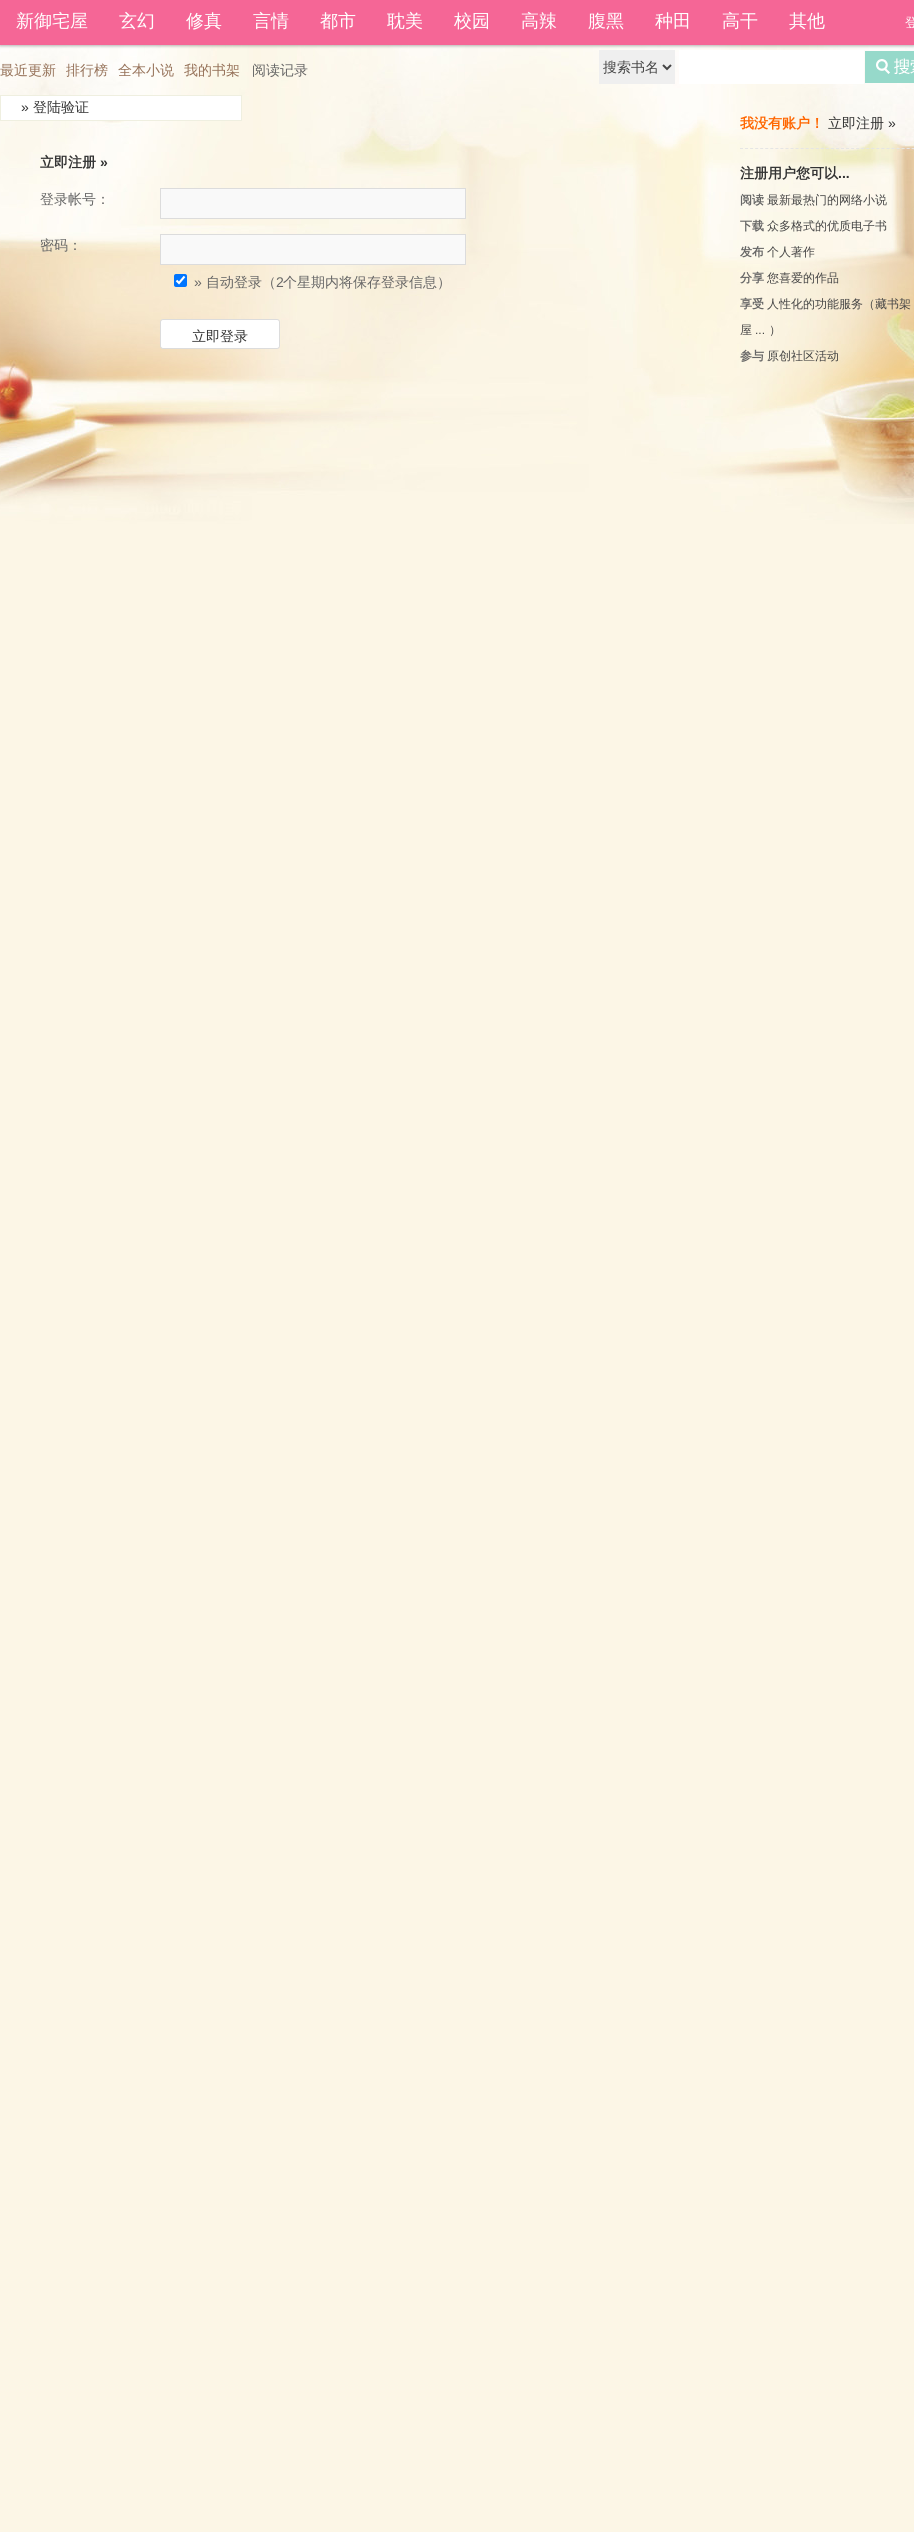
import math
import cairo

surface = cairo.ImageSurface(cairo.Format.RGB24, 914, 2532)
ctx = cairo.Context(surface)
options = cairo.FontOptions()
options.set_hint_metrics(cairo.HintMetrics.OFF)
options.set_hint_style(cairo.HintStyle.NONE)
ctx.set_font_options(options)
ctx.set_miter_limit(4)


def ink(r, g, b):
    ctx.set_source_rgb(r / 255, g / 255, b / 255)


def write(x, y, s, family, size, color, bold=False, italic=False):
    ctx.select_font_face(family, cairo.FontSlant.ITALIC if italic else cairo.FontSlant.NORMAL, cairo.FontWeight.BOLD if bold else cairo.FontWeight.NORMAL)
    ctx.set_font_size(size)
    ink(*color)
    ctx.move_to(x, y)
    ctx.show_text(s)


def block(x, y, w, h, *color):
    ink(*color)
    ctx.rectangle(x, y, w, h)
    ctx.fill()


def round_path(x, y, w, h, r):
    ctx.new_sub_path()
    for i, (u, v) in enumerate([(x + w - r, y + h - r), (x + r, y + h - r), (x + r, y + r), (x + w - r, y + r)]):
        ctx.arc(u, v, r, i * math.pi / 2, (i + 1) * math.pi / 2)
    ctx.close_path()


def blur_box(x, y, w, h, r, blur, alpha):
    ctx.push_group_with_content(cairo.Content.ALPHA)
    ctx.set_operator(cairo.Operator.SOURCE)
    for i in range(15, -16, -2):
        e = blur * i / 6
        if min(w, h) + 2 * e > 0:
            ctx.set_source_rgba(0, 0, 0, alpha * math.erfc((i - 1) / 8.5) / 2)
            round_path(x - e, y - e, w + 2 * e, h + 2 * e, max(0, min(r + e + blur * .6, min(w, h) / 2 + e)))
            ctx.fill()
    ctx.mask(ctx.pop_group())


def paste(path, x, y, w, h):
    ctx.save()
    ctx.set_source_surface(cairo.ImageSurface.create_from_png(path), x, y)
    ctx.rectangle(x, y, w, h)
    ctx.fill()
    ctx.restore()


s1 = dict(family="WenQuanYi Zen Hei Medium", size=18, color=(255, 255, 255))
s2 = dict(family="WenQuanYi Zen Hei Medium", size=13, color=(255, 255, 255))
s3 = dict(family="WenQuanYi Zen Hei Medium", size=14, color=(149, 113, 88))
s4 = dict(family="WenQuanYi Zen Hei Medium", size=14, color=(102, 102, 102))
s5 = dict(family="WenQuanYi Zen Hei Medium", size=14, color=(68, 68, 68))
s6 = dict(family="Liberation Sans", size=14, color=(51, 51, 51))
s7 = dict(family="WenQuanYi Zen Hei Medium", size=14, color=(51, 51, 51))
s8 = dict(family="WenQuanYi Zen Hei", size=14, color=(51, 51, 51), bold=True)
s9 = dict(family="Liberation Sans", size=14, color=(51, 51, 51), bold=True)
s10 = dict(family="Liberation Sans", size=14, color=(102, 102, 102))
s11 = dict(family="WenQuanYi Zen Hei", size=14, color=(255, 102, 0), bold=True)
s12 = dict(family="WenQuanYi Zen Hei", size=12, color=(102, 102, 102), bold=True)
s13 = dict(family="WenQuanYi Zen Hei Medium", size=12, color=(68, 68, 68))
s14 = dict(family="Liberation Sans", size=12, color=(68, 68, 68))

ink(252, 246, 230)
ctx.paint()
paste("pic1.png", 0, 45, 914, 479)
ink(0, 0, 0)
blur_box(0, 1, 914, 45, 0, 1.5, 0.3)
block(0, 0, 914, 45, 245, 102, 150)
write(16, 27, "新御宅屋", **s1)
write(119, 27, "玄幻", **s1)
write(186, 27, "修真", **s1)
write(253, 27, "言情", **s1)
write(320, 27, "都市", **s1)
write(387, 27, "耽美", **s1)
write(454, 27, "校园", **s1)
write(521, 27, "高辣", **s1)
write(588, 27, "腹黑", **s1)
write(655, 27, "种田", **s1)
write(722, 27, "高干", **s1)
write(789, 27, "其他", **s1)
write(905, 27, "登", **s2)
write(0, 75, "最近更新", **s3)
write(66, 75, "排行榜", **s3)
write(118, 75, "全本小说", **s3)
write(184, 75, "我的书架", **s3)
write(252, 75, "阅读记录", **s4)
block(599, 50, 76, 34, 239, 239, 239)
ctx.new_path()
ctx.move_to(663, 65)
ctx.line_to(667, 69)
ctx.line_to(671, 65)
ink(68, 68, 68)
ctx.stroke()
write(603, 72, "搜索书名", **s5)
block(679, 50, 185, 34, 255, 255, 255)
paste("pic2.png", 865, 51, 49, 32)
ctx.rectangle(0.5, 95.5, 241, 25)
ctx.fill_preserve()
ink(239, 239, 224)
ctx.set_line_width(1)
ctx.stroke()
write(21, 112, "»", **s6)
write(33, 112, "登陆验证", **s7)
write(40, 167, "立即注册", **s8)
write(100, 167, "»", **s9)
write(40, 204, "登录帐号：", **s4)
ink(249, 249, 249)
ctx.rectangle(160.5, 188.5, 305, 30)
ctx.fill_preserve()
ink(220, 220, 220)
ctx.stroke()
write(40, 250, "密码：", **s4)
ink(249, 249, 249)
ctx.rectangle(160.5, 234.5, 305, 30)
ctx.fill_preserve()
ink(220, 220, 220)
ctx.stroke()
ink(0, 117, 255)
round_path(174, 274, 13, 13, 2)
ctx.fill()
ctx.new_path()
ctx.move_to(176.5, 280.5)
ctx.line_to(179, 283)
ctx.line_to(184.5, 276.5)
ink(255, 255, 255)
ctx.set_line_width(2.1)
ctx.stroke()
write(194, 287, "»", **s10)
write(206, 287, "自动登录（", **s4)
write(276, 287, "2", **s10)
write(283, 287, "个星期内将保存登录信息）", **s4)
ink(255, 255, 255)
round_path(160.5, 319.5, 119, 29, 2.5)
ctx.fill_preserve()
ink(220, 220, 220)
ctx.set_line_width(1)
ctx.stroke()
write(192, 341, "立即登录", **s7)
write(740, 128, "我没有账户！", **s11)
write(828, 128, "立即注册", **s7)
write(888, 128, "»", **s6)
ctx.new_path()
ctx.move_to(740, 148.5)
ctx.line_to(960, 148.5)
ink(229, 229, 229)
ctx.set_dash([3, 2.05])
ctx.stroke()
write(740, 178, "注册用户您可以", **s8)
write(838, 178, "...", **s9)
write(740, 204, "阅读", **s12)
write(767, 204, "最新最热门的网络小说", **s13)
write(740, 230, "下载", **s12)
write(767, 230, "众多格式的优质电子书", **s13)
write(740, 256, "发布", **s12)
write(767, 256, "个人著作", **s13)
write(740, 282, "分享", **s12)
write(767, 282, "您喜爱的作品", **s13)
write(740, 308, "享受", **s12)
write(767, 308, "人性化的功能服务（藏书架", **s13)
write(740, 334, "屋", **s13)
write(755, 334, "...", **s14)
write(769, 334, "）", **s13)
write(740, 360, "参与", **s12)
write(767, 360, "原创社区活动", **s13)
surface.write_to_png("screenshot.png")
